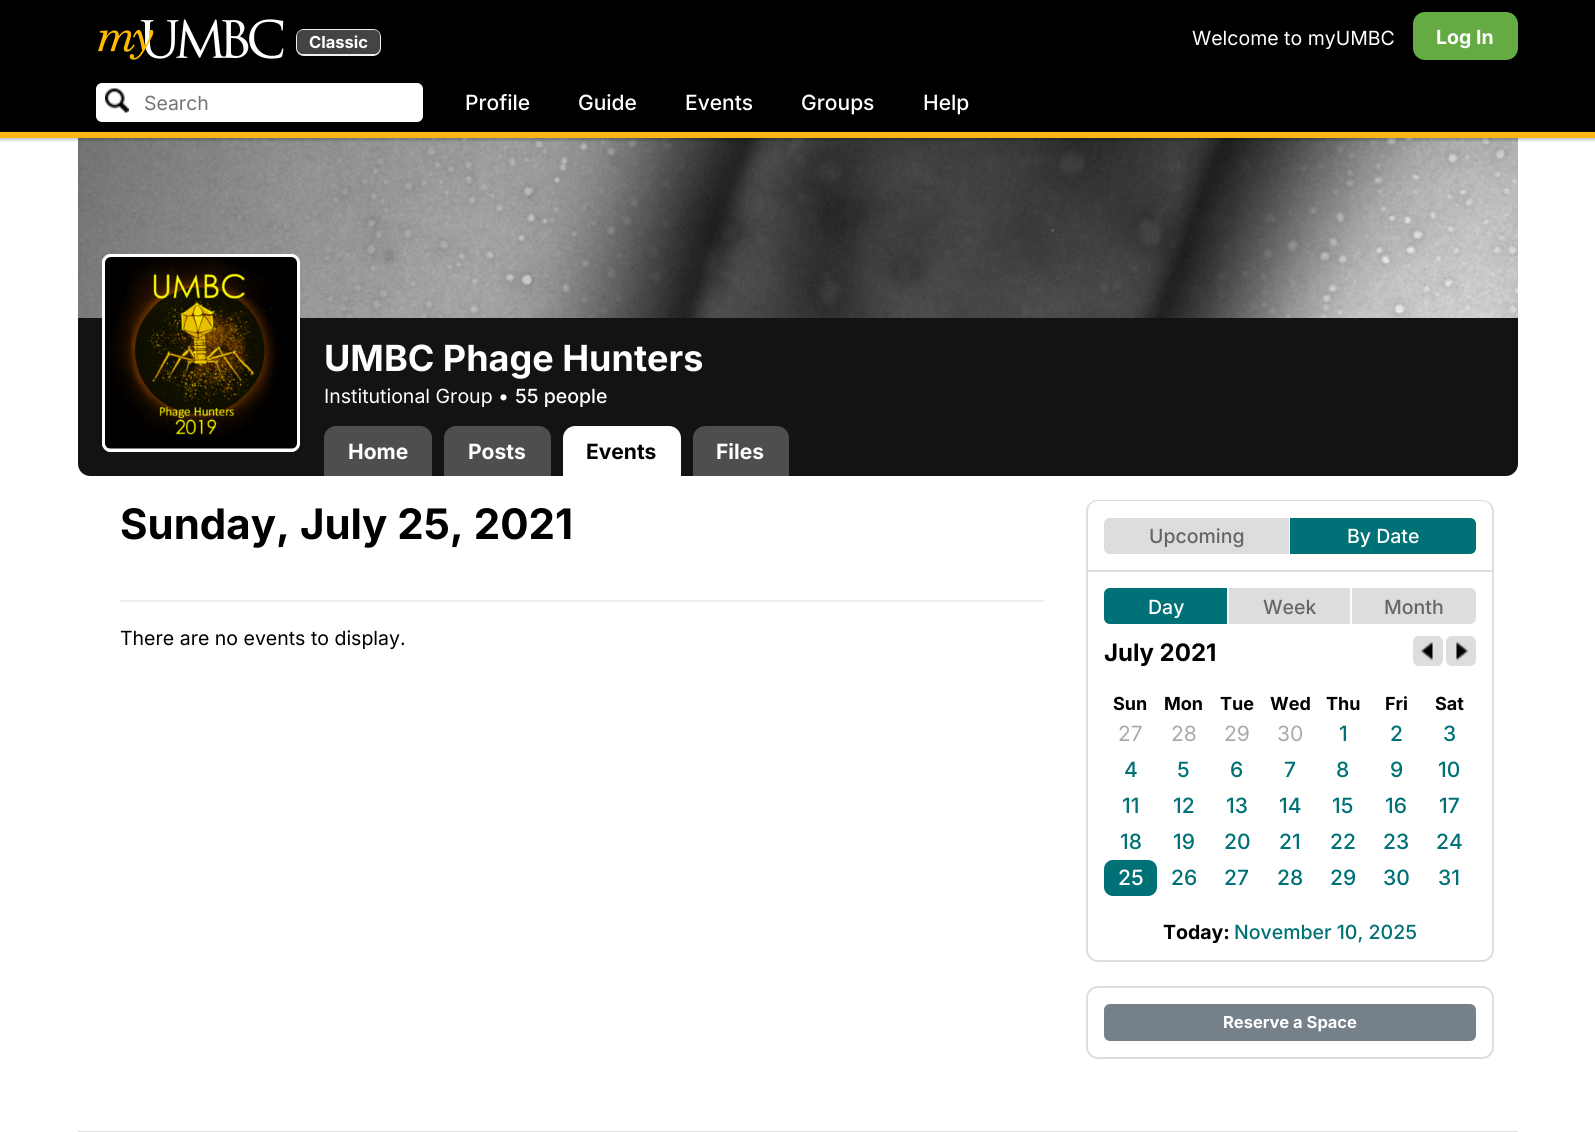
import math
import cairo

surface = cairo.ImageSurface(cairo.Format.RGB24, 1595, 1132)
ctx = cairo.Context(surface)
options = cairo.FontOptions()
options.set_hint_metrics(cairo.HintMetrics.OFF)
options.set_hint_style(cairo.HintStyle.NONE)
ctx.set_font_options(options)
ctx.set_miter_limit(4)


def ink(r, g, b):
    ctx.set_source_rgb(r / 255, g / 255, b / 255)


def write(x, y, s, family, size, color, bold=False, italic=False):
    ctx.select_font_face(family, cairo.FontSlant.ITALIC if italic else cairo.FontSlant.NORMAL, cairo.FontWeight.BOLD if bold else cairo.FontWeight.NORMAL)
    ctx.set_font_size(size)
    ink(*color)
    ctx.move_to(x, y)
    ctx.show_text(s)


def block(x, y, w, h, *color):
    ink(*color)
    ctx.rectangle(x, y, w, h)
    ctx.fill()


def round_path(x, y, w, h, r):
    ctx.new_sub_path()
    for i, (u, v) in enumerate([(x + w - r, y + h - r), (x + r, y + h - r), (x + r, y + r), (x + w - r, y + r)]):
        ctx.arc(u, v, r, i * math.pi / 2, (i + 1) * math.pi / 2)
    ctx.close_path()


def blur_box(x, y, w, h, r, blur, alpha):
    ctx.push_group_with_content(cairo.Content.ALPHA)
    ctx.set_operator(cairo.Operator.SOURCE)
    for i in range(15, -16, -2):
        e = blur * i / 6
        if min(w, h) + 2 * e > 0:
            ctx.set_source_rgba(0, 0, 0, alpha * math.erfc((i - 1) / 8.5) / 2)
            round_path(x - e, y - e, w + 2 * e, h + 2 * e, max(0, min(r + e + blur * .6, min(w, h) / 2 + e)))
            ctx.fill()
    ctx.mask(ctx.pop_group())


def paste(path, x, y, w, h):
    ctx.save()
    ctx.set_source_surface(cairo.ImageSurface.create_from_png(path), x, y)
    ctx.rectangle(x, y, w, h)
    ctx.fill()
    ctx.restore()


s1 = dict(family="Inter", size=16.5, color=(255, 255, 255), bold=True)
s2 = dict(family="Inter", size=19.5, color=(255, 255, 255))
s3 = dict(family="Inter", size=19.5, color=(255, 255, 255), bold=True)
s4 = dict(family="Inter", size=19.5, color=(117, 117, 117))
s5 = dict(family="Inter Medium", size=21, color=(255, 255, 255))
s6 = dict(family="Inter", size=36, color=(255, 255, 255), bold=True)
s7 = dict(family="Inter Medium", size=19.5, color=(255, 255, 255))
s8 = dict(family="Inter", size=21, color=(255, 255, 255), bold=True)
s9 = dict(family="Inter", size=21, color=(0, 0, 0), bold=True)
s10 = dict(family="Inter", size=42, color=(0, 0, 0), bold=True)
s11 = dict(family="Inter", size=19.5, color=(0, 0, 0))
s12 = dict(family="Inter Medium", size=19.5, color=(102, 102, 102))
s13 = dict(family="Inter", size=24, color=(0, 0, 0), bold=True)
s14 = dict(family="Inter", size=18, color=(0, 0, 0), bold=True)
s15 = dict(family="Inter", size=21, color=(170, 170, 170))
s16 = dict(family="Inter Medium", size=21, color=(0, 113, 118))
s17 = dict(family="Inter", size=19.5, color=(0, 0, 0), bold=True)
s18 = dict(family="Inter Medium", size=19.5, color=(0, 113, 118))

ink(255, 255, 255)
ctx.paint()
paste("pic3.png", 78, 138, 1440, 180)
ink(0, 0, 0)
blur_box(0, 2, 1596, 138, 0, 1.5, 0.24)
block(0, 0, 1595, 132, 0, 0, 0)
block(0, 132, 1595, 6, 253, 181, 21)
paste("pic1.png", 98, 19, 186, 41)
round_path(297, 30, 83, 25, 7)
ink(240, 240, 240)
ctx.stroke()
ink(68, 68, 68)
round_path(297, 30, 83, 24, 6)
ctx.fill()
write(309, 48, "Classic", **s1)
write(1192, 45, "Welcome to myUMBC", **s2)
ink(102, 170, 68)
round_path(1413, 12, 105, 48, 12)
ctx.fill()
write(1436, 44, "Log In", **s3)
round_path(96, 83, 327, 39, 6)
ctx.fill()
paste("pic2.png", 105, 88, 24, 25)
write(144, 110, "Search", **s4)
write(465, 110, "Profile", **s5)
write(578, 110, "Guide", **s5)
write(685, 110, "Events", **s5)
write(801, 110, "Groups", **s5)
write(923, 110, "Help", **s5)
block(78, 318, 1440, 99, 17, 19, 21)
ctx.new_path()
ctx.move_to(78, 417)
ctx.line_to(1518, 417)
ctx.line_to(1518, 464)
ctx.curve_to(1518, 470.5, 1512.5, 476, 1506, 476)
ctx.line_to(90, 476)
ctx.curve_to(83.5, 476, 78, 470.5, 78, 464)
ctx.close_path()
ctx.fill()
ink(255, 255, 255)
round_path(102, 254, 198, 198, 9)
ctx.fill()
paste("pic4.png", 105, 256, 192, 193)
round_path(103.5, 255.5, 195, 195, 7.5)
ctx.set_line_width(3)
ctx.stroke()
write(324, 371, "UMBC Phage Hunters", **s6)
write(324, 403, "Institutional Group •", **s2)
write(515, 403, "55 people", **s7)
ink(77, 78, 80)
ctx.new_path()
ctx.move_to(336, 426)
ctx.line_to(420, 426)
ctx.curve_to(426.5, 426, 432, 431.5, 432, 438)
ctx.line_to(432, 476)
ctx.line_to(324, 476)
ctx.line_to(324, 438)
ctx.curve_to(324, 431.5, 329.5, 426, 336, 426)
ctx.close_path()
ctx.fill()
write(348, 459, "Home", **s8)
ink(77, 78, 80)
ctx.new_path()
ctx.move_to(456, 426)
ctx.line_to(539, 426)
ctx.curve_to(545.5, 426, 551, 431.5, 551, 438)
ctx.line_to(551, 476)
ctx.line_to(444, 476)
ctx.line_to(444, 438)
ctx.curve_to(444, 431.5, 449.5, 426, 456, 426)
ctx.close_path()
ctx.fill()
write(468, 459, "Posts", **s8)
ctx.new_path()
ctx.move_to(575, 426)
ctx.line_to(669, 426)
ctx.curve_to(675.5, 426, 681, 431.5, 681, 438)
ctx.line_to(681, 476)
ctx.line_to(563, 476)
ctx.line_to(563, 438)
ctx.curve_to(563, 431.5, 568.5, 426, 575, 426)
ctx.close_path()
ctx.fill()
write(586, 459, "Events", **s9)
ink(77, 78, 80)
ctx.new_path()
ctx.move_to(705, 426)
ctx.line_to(777, 426)
ctx.curve_to(783.5, 426, 789, 431.5, 789, 438)
ctx.line_to(789, 476)
ctx.line_to(693, 476)
ctx.line_to(693, 438)
ctx.curve_to(693, 431.5, 698.5, 426, 705, 426)
ctx.close_path()
ctx.fill()
write(716, 459, "Files", **s8)
write(120, 539, "Sunday, July 25, 2021", **s10)
block(120, 600, 924, 2, 238, 238, 238)
write(120, 645, "There are no events to display.", **s11)
ink(221, 221, 221)
ctx.set_fill_rule(cairo.FillRule.EVEN_ODD)
ctx.new_path()
ctx.move_to(1098, 500)
ctx.line_to(1482, 500)
ctx.curve_to(1489, 500, 1494, 505, 1494, 512)
ctx.line_to(1494, 570)
ctx.line_to(1086, 570)
ctx.line_to(1086, 512)
ctx.curve_to(1086, 505, 1091, 500, 1098, 500)
ctx.close_path()
ctx.move_to(1098, 501)
ctx.line_to(1482, 501)
ctx.curve_to(1488, 501, 1492, 506, 1492, 512)
ctx.line_to(1492, 570)
ctx.line_to(1088, 570)
ctx.line_to(1088, 512)
ctx.curve_to(1088, 506, 1092, 501, 1098, 501)
ctx.close_path()
ctx.fill()
ctx.new_path()
ctx.move_to(1110, 518)
ctx.line_to(1290, 518)
ctx.line_to(1290, 554)
ctx.line_to(1110, 554)
ctx.curve_to(1106.5, 554, 1104, 551.5, 1104, 548)
ctx.line_to(1104, 524)
ctx.curve_to(1104, 520.5, 1106.5, 518, 1110, 518)
ctx.close_path()
ctx.fill()
write(1149, 543, "Upcoming", **s12)
block(1289, 518, 1, 36, 255, 255, 255)
ink(0, 113, 118)
ctx.new_path()
ctx.move_to(1290, 518)
ctx.line_to(1470, 518)
ctx.curve_to(1473.5, 518, 1476, 520.5, 1476, 524)
ctx.line_to(1476, 548)
ctx.curve_to(1476, 551.5, 1473.5, 554, 1470, 554)
ctx.line_to(1290, 554)
ctx.close_path()
ctx.fill()
write(1347, 543, "By Date", **s7)
ctx.new_path()
ctx.move_to(1087, 571)
ctx.line_to(1493, 571)
ctx.line_to(1493, 950)
ctx.curve_to(1493, 956, 1488, 961, 1482, 961)
ctx.line_to(1098, 961)
ctx.curve_to(1092, 961, 1087, 956, 1087, 950)
ctx.close_path()
ink(221, 221, 221)
ctx.set_line_width(2)
ctx.stroke()
ink(0, 113, 118)
ctx.new_path()
ctx.move_to(1110, 588)
ctx.line_to(1229, 588)
ctx.line_to(1229, 624)
ctx.line_to(1110, 624)
ctx.curve_to(1106.5, 624, 1104, 621.5, 1104, 618)
ctx.line_to(1104, 594)
ctx.curve_to(1104, 590.5, 1106.5, 588, 1110, 588)
ctx.close_path()
ctx.fill()
write(1148, 614, "Day", **s7)
block(1227, 588, 2, 36, 255, 255, 255)
block(1229, 588, 121, 36, 221, 221, 221)
write(1263, 614, "Week", **s12)
ink(221, 221, 221)
ctx.new_path()
ctx.move_to(1352, 588)
ctx.line_to(1470, 588)
ctx.curve_to(1473.5, 588, 1476, 590.5, 1476, 594)
ctx.line_to(1476, 618)
ctx.curve_to(1476, 621.5, 1473.5, 624, 1470, 624)
ctx.line_to(1352, 624)
ctx.close_path()
ctx.fill()
write(1384, 614, "Month", **s12)
write(1104, 661, "July 2021", **s13)
ink(221, 221, 221)
round_path(1413, 636, 30, 30, 6)
ctx.fill()
paste("pic5.png", 1420, 641, 13, 20)
round_path(1446, 636, 30, 30, 6)
ctx.fill()
paste("pic6.png", 1456, 641, 13, 20)
write(1113, 710, "Sun", **s14)
write(1164, 710, "Mon", **s14)
write(1220, 710, "Tue", **s14)
write(1270, 710, "Wed", **s14)
write(1326, 710, "Thu", **s14)
write(1385, 710, "Fri", **s14)
write(1435, 710, "Sat", **s14)
write(1118, 741, "27", **s15)
write(1171, 741, "28", **s15)
write(1224, 741, "29", **s15)
write(1277, 741, "30", **s15)
write(1339, 741, "1", **s16)
write(1390, 741, "2", **s16)
write(1443, 741, "3", **s16)
write(1124, 777, "4", **s16)
write(1177, 777, "5", **s16)
write(1230, 777, "6", **s16)
write(1284, 777, "7", **s16)
write(1336, 777, "8", **s16)
write(1390, 777, "9", **s16)
write(1438, 777, "10", **s16)
write(1122, 813, "11", **s16)
write(1173, 813, "12", **s16)
write(1226, 813, "13", **s16)
write(1279, 813, "14", **s16)
write(1332, 813, "15", **s16)
write(1385, 813, "16", **s16)
write(1439, 813, "17", **s16)
write(1120, 849, "18", **s16)
write(1173, 849, "19", **s16)
write(1224, 849, "20", **s16)
write(1279, 849, "21", **s16)
write(1330, 849, "22", **s16)
write(1383, 849, "23", **s16)
write(1436, 849, "24", **s16)
round_path(1104, 860, 53, 36, 9)
ctx.fill()
write(1118, 885, "25", **s5)
write(1171, 885, "26", **s16)
write(1224, 885, "27", **s16)
write(1277, 885, "28", **s16)
write(1330, 885, "29", **s16)
write(1383, 885, "30", **s16)
write(1438, 885, "31", **s16)
write(1163, 939, "Today:", **s17)
write(1234, 939, "November 10, 2025", **s18)
round_path(1087, 987, 406, 71, 11)
ink(221, 221, 221)
ctx.stroke()
ink(118, 128, 137)
round_path(1104, 1004, 372, 37, 6)
ctx.fill()
write(1223, 1028, "Reserve a Space", **s1)
block(78, 1131, 1440, 1, 224, 224, 224)
surface.write_to_png("screenshot.png")
